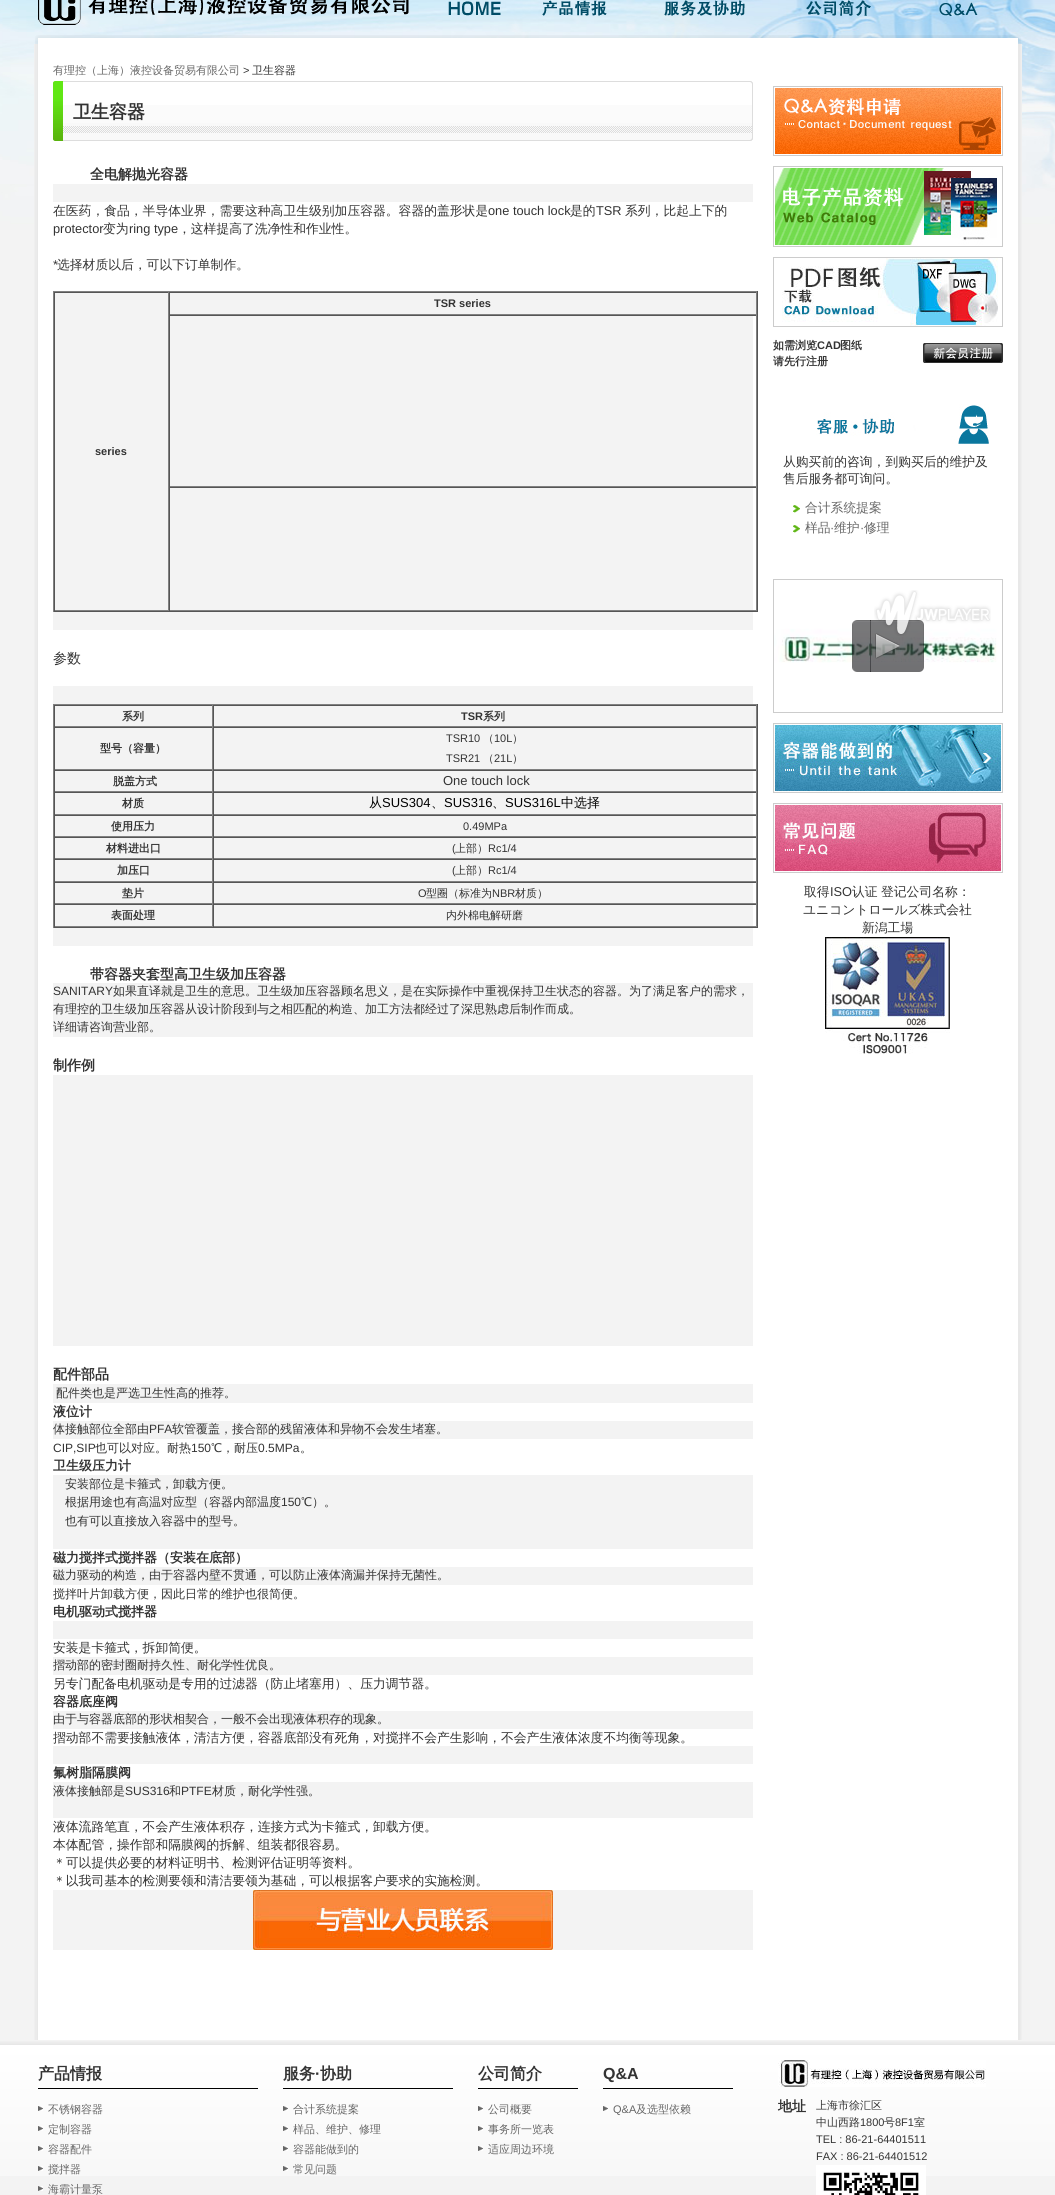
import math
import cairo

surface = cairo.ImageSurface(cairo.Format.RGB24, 1055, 2195)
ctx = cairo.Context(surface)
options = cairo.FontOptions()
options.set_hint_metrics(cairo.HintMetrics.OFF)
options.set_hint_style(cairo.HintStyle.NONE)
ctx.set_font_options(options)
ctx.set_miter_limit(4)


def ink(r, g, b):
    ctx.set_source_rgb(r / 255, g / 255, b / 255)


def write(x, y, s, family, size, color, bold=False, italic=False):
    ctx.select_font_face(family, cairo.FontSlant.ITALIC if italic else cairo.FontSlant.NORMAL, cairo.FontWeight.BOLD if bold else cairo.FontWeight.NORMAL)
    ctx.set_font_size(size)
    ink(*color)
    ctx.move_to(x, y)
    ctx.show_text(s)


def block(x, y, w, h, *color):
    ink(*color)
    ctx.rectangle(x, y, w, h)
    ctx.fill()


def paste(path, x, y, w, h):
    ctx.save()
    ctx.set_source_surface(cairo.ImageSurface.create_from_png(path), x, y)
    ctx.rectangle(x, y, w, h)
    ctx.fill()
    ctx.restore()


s1 = dict(family="WenQuanYi Zen Hei Medium", size=11, color=(102, 102, 102))
s2 = dict(family="Liberation Sans", size=11, color=(51, 51, 51))
s3 = dict(family="WenQuanYi Zen Hei Medium", size=11, color=(51, 51, 51))
s4 = dict(family="WenQuanYi Zen Hei", size=18, color=(51, 51, 51), bold=True)
s5 = dict(family="WenQuanYi Zen Hei", size=14, color=(51, 51, 51), bold=True)
s6 = dict(family="WenQuanYi Zen Hei Medium", size=12.8, color=(51, 51, 51))
s7 = dict(family="Liberation Sans", size=12.8, color=(51, 51, 51))
s8 = dict(family="Liberation Sans", size=11, color=(51, 51, 51), bold=True)
s9 = dict(family="WenQuanYi Zen Hei Medium", size=14, color=(51, 51, 51))
s10 = dict(family="WenQuanYi Zen Hei", size=11, color=(51, 51, 51), bold=True)
s11 = dict(family="Liberation Sans", size=13, color=(51, 51, 51))
s12 = dict(family="WenQuanYi Zen Hei Medium", size=13, color=(0, 0, 0))
s13 = dict(family="Liberation Sans", size=13, color=(0, 0, 0))
s14 = dict(family="Liberation Sans", size=12, color=(51, 51, 51))
s15 = dict(family="WenQuanYi Zen Hei Medium", size=12, color=(51, 51, 51))
s16 = dict(family="WenQuanYi Zen Hei", size=13, color=(51, 51, 51), bold=True)
s17 = dict(family="WenQuanYi Zen Hei Medium", size=12.8, color=(102, 102, 102))
s18 = dict(family="Liberation Sans", size=12.8, color=(102, 102, 102))
s19 = dict(family="WenQuanYi Zen Hei", size=16, color=(51, 51, 51), bold=True)
s20 = dict(family="Liberation Sans", size=16, color=(51, 51, 51), bold=True)
s21 = dict(family="Liberation Sans", size=11, color=(102, 102, 102))

ink(243, 243, 243)
ctx.paint()
paste("pic1.png", 0, 0, 1055, 224)
paste("pic2.png", 38, 0, 371, 25)
paste("pic3.png", 448, 1, 53, 15)
paste("pic4.png", 542, 0, 65, 16)
paste("pic5.png", 664, 0, 81, 16)
paste("pic6.png", 806, 0, 65, 16)
paste("pic7.png", 939, 2, 39, 14)
paste("pic8.png", 35, 35, 986, 9)
paste("pic9.png", 34, 44, 988, 1996)
write(53, 74, "有理控（上海）液控设备贸易有限公司", **s1)
write(243, 74, ">", **s2)
write(252, 74, "卫生容器", **s3)
paste("pic10.png", 53, 81, 700, 60)
write(73, 118, "卫生容器", **s4)
write(90, 179, "全电解抛光容器", **s5)
block(53, 184, 700, 18, 243, 243, 243)
write(53, 215, "在医药，食品，半导体业界，需要这种高卫生级别加压容器。容器的盖形状是", **s6)
write(488, 215, "one touch lock", **s7)
write(570, 215, "是的", **s6)
write(596, 215, "TSR", **s7)
write(625, 215, "系列，比起上下的", **s6)
write(53, 233, "protector", **s7)
write(103, 233, "变为", **s6)
write(129, 233, "ring type", **s7)
write(178, 233, "，这样提高了洗净性和作业性。", **s6)
write(53, 269, "*", **s7)
write(57, 269, "选择材质以后，可以下订单制作。", **s6)
block(53, 293, 700, 337, 243, 243, 243)
block(53, 291, 705, 1, 128, 128, 128)
block(757, 291, 1, 321, 85, 85, 85)
block(53, 611, 705, 1, 85, 85, 85)
block(53, 291, 1, 321, 128, 128, 128)
block(753, 293, 3, 21, 242, 242, 242)
block(54, 292, 703, 1, 85, 85, 85)
block(756, 292, 1, 23, 128, 128, 128)
block(169, 314, 588, 1, 128, 128, 128)
block(169, 292, 1, 23, 85, 85, 85)
write(434, 307, "TSR series", **s8)
block(168, 292, 1, 319, 128, 128, 128)
block(54, 610, 115, 1, 128, 128, 128)
block(54, 292, 1, 319, 85, 85, 85)
write(95, 455, "series", **s8)
block(169, 315, 588, 1, 85, 85, 85)
block(756, 315, 1, 172, 128, 128, 128)
block(169, 486, 588, 1, 128, 128, 128)
block(169, 315, 1, 172, 85, 85, 85)
block(169, 487, 588, 1, 85, 85, 85)
block(756, 487, 1, 124, 128, 128, 128)
block(169, 610, 588, 1, 128, 128, 128)
block(169, 487, 1, 124, 85, 85, 85)
write(53, 663, "参数", **s9)
block(53, 686, 700, 260, 243, 243, 243)
block(53, 704, 705, 1, 128, 128, 128)
block(757, 704, 1, 224, 85, 85, 85)
block(53, 927, 705, 1, 85, 85, 85)
block(53, 704, 1, 224, 128, 128, 128)
block(54, 705, 703, 1, 85, 85, 85)
block(212, 705, 1, 22, 128, 128, 128)
block(54, 726, 159, 1, 128, 128, 128)
block(54, 705, 1, 22, 85, 85, 85)
write(122, 720, "系列", **s10)
block(753, 706, 3, 20, 242, 242, 242)
block(756, 705, 1, 22, 128, 128, 128)
block(213, 726, 544, 1, 128, 128, 128)
block(213, 705, 1, 22, 85, 85, 85)
write(461, 720, "TSR", **s8)
write(483, 720, "系列", **s10)
block(54, 727, 703, 1, 85, 85, 85)
block(212, 727, 1, 43, 128, 128, 128)
block(54, 769, 159, 1, 128, 128, 128)
block(54, 727, 1, 43, 85, 85, 85)
write(100, 752, "型号（容量）", **s10)
block(756, 727, 1, 43, 128, 128, 128)
block(213, 769, 544, 1, 128, 128, 128)
block(213, 727, 1, 43, 85, 85, 85)
write(446, 742, "TSR10", **s2)
write(483, 742, "（", **s3)
write(494, 742, "10L", **s2)
write(512, 742, "）", **s3)
write(446, 762, "TSR21", **s2)
write(483, 762, "（", **s3)
write(494, 762, "21L", **s2)
write(512, 762, "）", **s3)
block(54, 770, 703, 1, 85, 85, 85)
block(212, 770, 1, 22, 128, 128, 128)
block(54, 791, 159, 1, 128, 128, 128)
block(54, 770, 1, 22, 85, 85, 85)
write(113, 785, "脱盖方式", **s10)
block(756, 770, 1, 22, 128, 128, 128)
block(213, 791, 544, 1, 128, 128, 128)
block(213, 770, 1, 22, 85, 85, 85)
write(443, 785, "One touch lock", **s11)
block(54, 792, 703, 1, 85, 85, 85)
block(212, 792, 1, 23, 128, 128, 128)
block(54, 814, 159, 1, 128, 128, 128)
block(54, 792, 1, 23, 85, 85, 85)
write(122, 807, "材质", **s10)
block(756, 792, 1, 23, 128, 128, 128)
block(213, 814, 544, 1, 128, 128, 128)
block(213, 792, 1, 23, 85, 85, 85)
write(369, 807, "从", **s12)
write(382, 807, "SUS304", **s13)
write(431, 807, "、", **s12)
write(444, 807, "SUS316", **s13)
write(492, 807, "、", **s12)
write(505, 807, "SUS316L", **s13)
write(561, 807, "中选择", **s12)
block(54, 815, 703, 1, 85, 85, 85)
block(212, 815, 1, 22, 128, 128, 128)
block(54, 836, 159, 1, 128, 128, 128)
block(54, 815, 1, 22, 85, 85, 85)
write(111, 830, "使用压力", **s10)
block(756, 815, 1, 22, 128, 128, 128)
block(213, 836, 544, 1, 128, 128, 128)
block(213, 815, 1, 22, 85, 85, 85)
write(463, 830, "0.49MPa", **s2)
block(54, 837, 703, 1, 85, 85, 85)
block(212, 837, 1, 22, 128, 128, 128)
block(54, 858, 159, 1, 128, 128, 128)
block(54, 837, 1, 22, 85, 85, 85)
write(106, 852, "材料进出口", **s10)
block(756, 837, 1, 22, 128, 128, 128)
block(213, 858, 544, 1, 128, 128, 128)
block(213, 837, 1, 22, 85, 85, 85)
write(452, 852, "(", **s2)
write(455, 852, "上部）", **s3)
write(488, 852, "Rc1/4", **s2)
block(54, 859, 703, 1, 85, 85, 85)
block(212, 859, 1, 23, 128, 128, 128)
block(54, 881, 159, 1, 128, 128, 128)
block(54, 859, 1, 23, 85, 85, 85)
write(117, 874, "加压口", **s10)
block(756, 859, 1, 23, 128, 128, 128)
block(213, 881, 544, 1, 128, 128, 128)
block(213, 859, 1, 23, 85, 85, 85)
write(452, 874, "(", **s2)
write(455, 874, "上部）", **s3)
write(488, 874, "Rc1/4", **s2)
block(54, 882, 703, 1, 85, 85, 85)
block(212, 882, 1, 22, 128, 128, 128)
block(54, 903, 159, 1, 128, 128, 128)
block(54, 882, 1, 22, 85, 85, 85)
write(122, 897, "垫片", **s10)
block(756, 882, 1, 22, 128, 128, 128)
block(213, 903, 544, 1, 128, 128, 128)
block(213, 882, 1, 22, 85, 85, 85)
write(418, 897, "O", **s2)
write(426, 897, "型圈（标准为", **s3)
write(492, 897, "NBR", **s2)
write(515, 897, "材质）", **s3)
block(54, 904, 703, 1, 85, 85, 85)
block(212, 904, 1, 23, 128, 128, 128)
block(54, 926, 159, 1, 128, 128, 128)
block(54, 904, 1, 23, 85, 85, 85)
write(111, 919, "表面处理", **s10)
block(756, 904, 1, 23, 128, 128, 128)
block(213, 926, 544, 1, 128, 128, 128)
block(213, 904, 1, 23, 85, 85, 85)
write(446, 919, "内外棉电解研磨", **s3)
write(90, 979, "带容器夹套型高卫生级加压容器", **s5)
block(53, 983, 700, 54, 243, 243, 243)
write(53, 995, "SANITARY", **s14)
write(113, 995, "如果直译就是卫生的意思。卫生级加压容器顾名思义，是在实际操作中重视保持卫生状态的容器。为了满足客户的需求，", **s15)
write(53, 1013, "有理控的卫生级加压容器从设计阶段到与之相匹配的构造、加工方法都经过了深思熟虑后制作而成。", **s15)
write(53, 1031, "详细请咨询营业部。", **s15)
write(53, 1070, "制作例", **s5)
block(53, 1075, 700, 271, 243, 243, 243)
write(53, 1379, "配件部品", **s5)
block(53, 1384, 700, 19, 243, 243, 243)
write(56, 1397, "配件类也是严选卫生性高的推荐。", **s15)
write(53, 1416, "液位计", **s16)
block(53, 1421, 700, 18, 243, 243, 243)
write(53, 1433, "体接触部位全部由", **s15)
write(149, 1433, "PFA", **s14)
write(172, 1433, "软管覆盖，接合部的残留液体和异物不会发生堵塞。", **s15)
write(53, 1452, "CIP,SIP", **s14)
write(95, 1452, "也可以对应。耐热", **s15)
write(191, 1452, "150", **s14)
write(211, 1452, "℃，耐压", **s15)
write(258, 1452, "0.5MPa", **s14)
write(300, 1452, "。", **s15)
write(53, 1470, "卫生级压力计", **s16)
block(53, 1475, 700, 74, 243, 243, 243)
write(65, 1488, "安装部位是卡箍式，卸载方便。", **s15)
write(65, 1506, "根据用途也有高温对应型（容器内部温度", **s15)
write(281, 1506, "150", **s14)
write(301, 1506, "℃）。", **s15)
write(65, 1525, "也有可以直接放入容器中的型号。", **s15)
write(53, 1562, "磁力搅拌式搅拌器（安装在底部）", **s16)
block(53, 1567, 700, 18, 243, 243, 243)
write(53, 1579, "磁力驱动的构造，由于容器内壁不贯通，可以防止液体滴漏并保持无菌性。", **s15)
write(53, 1598, "搅拌叶片卸载方便，因此日常的维护也很简便。", **s15)
write(53, 1616, "电机驱动式搅拌器", **s16)
block(53, 1621, 700, 18, 243, 243, 243)
write(53, 1652, "安装是卡箍式，拆卸简便。", **s6)
block(53, 1657, 700, 18, 243, 243, 243)
write(53, 1669, "摺动部的密封圈耐持久性、耐化学性优良。", **s15)
write(53, 1688, "另专门配备电机驱动是专用的过滤器（防止堵塞用）、压力调节器。", **s6)
write(53, 1706, "容器底座阀", **s16)
block(53, 1711, 700, 18, 243, 243, 243)
write(53, 1723, "由于与容器底部的形状相契合，一般不会出现液体积存的现象。", **s15)
write(53, 1742, "摺动部不需要接触液体，清洁方便，容器底部没有死角，对搅拌不会产生影响，不会产生液体浓度不均衡等现象。", **s6)
block(53, 1746, 700, 18, 243, 243, 243)
write(53, 1777, "氟树脂隔膜阀", **s16)
block(53, 1782, 700, 36, 243, 243, 243)
write(53, 1795, "液体接触部是", **s15)
write(125, 1795, "SUS316", **s14)
write(169, 1795, "和", **s15)
write(181, 1795, "PTFE", **s14)
write(212, 1795, "材质，耐化学性强。", **s15)
write(53, 1831, "液体流路笔直，不会产生液体积存，连接方式为卡箍式，卸载方便。", **s6)
write(53, 1849, "本体配管，操作部和隔膜阀的拆解、组装都很容易。", **s6)
write(53, 1867, "＊可以提供必要的材料证明书、检测评估证明等资料。", **s6)
write(53, 1885, "＊以我司基本的检测要领和清洁要领为基础，可以根据客户要求的实施检测。", **s6)
block(53, 1890, 700, 60, 243, 243, 243)
paste("pic11.png", 253, 1890, 300, 60)
ctx.rectangle(773.5, 86.5, 229, 69)
ink(204, 204, 204)
ctx.set_line_width(1)
ctx.stroke()
paste("pic12.png", 775, 88, 226, 66)
ctx.rectangle(773.5, 166.5, 229, 80)
ctx.stroke()
paste("pic13.png", 775, 168, 222, 78)
ctx.rectangle(773.5, 257.5, 229, 69)
ctx.stroke()
paste("pic14.png", 782, 258, 216, 68)
write(773, 349, "如需浏览", **s10)
write(817, 349, "CAD", **s8)
write(840, 349, "图纸", **s10)
write(773, 365, "请先行注册", **s10)
paste("pic15.png", 923, 343, 80, 20)
paste("pic16.png", 816, 404, 173, 40)
write(783, 466, "从购买前的咨询，到购买后的维护及", **s6)
write(783, 483, "售后服务都可询问。", **s6)
paste("pic17.png", 793, 505, 7, 8)
write(805, 512, "合计系统提案", **s17)
paste("pic17.png", 793, 525, 7, 8)
write(805, 532, "样品", **s17)
write(830, 532, "·", **s18)
write(834, 532, "维护", **s17)
write(860, 532, "·", **s18)
write(864, 532, "修理", **s17)
ctx.rectangle(773.5, 579.5, 229, 133)
ink(204, 204, 204)
ctx.stroke()
paste("pic18.png", 774, 580, 228, 132)
paste("pic19.png", 852, 620, 72, 52)
paste("pic20.png", 875, 633, 25, 26)
paste("pic21.png", 874, 590, 117, 46)
ctx.rectangle(773.5, 723.5, 229, 69)
ctx.stroke()
paste("pic22.png", 774, 724, 228, 68)
ctx.rectangle(773.5, 803.5, 229, 69)
ctx.stroke()
paste("pic23.png", 774, 804, 228, 68)
write(804, 896, "取得", **s6)
write(830, 896, "ISO", **s7)
write(852, 896, "认证", **s6)
write(881, 896, "登记公司名称：", **s6)
write(803, 914, "ユニコントロールズ株式会社", **s6)
write(862, 932, "新潟工場", **s6)
paste("pic24.png", 825, 937, 125, 117)
paste("pic25.png", 0, 2041, 1055, 135)
block(38, 2088, 220, 1, 0, 0, 0)
write(38, 2079, "产品情报", **s19)
paste("pic26.png", 38, 2106, 5, 5)
write(48, 2113, "不锈钢容器", **s1)
paste("pic26.png", 38, 2126, 5, 5)
write(48, 2133, "定制容器", **s1)
paste("pic26.png", 38, 2146, 5, 5)
write(48, 2153, "容器配件", **s1)
paste("pic26.png", 38, 2166, 5, 5)
write(48, 2173, "搅拌器", **s1)
paste("pic26.png", 38, 2186, 5, 5)
write(48, 2193, "海霸计量泵", **s1)
block(283, 2088, 170, 1, 0, 0, 0)
write(283, 2079, "服务", **s19)
write(315, 2079, "·", **s20)
write(320, 2079, "协助", **s19)
paste("pic27.png", 283, 2106, 5, 5)
write(293, 2113, "合计系统提案", **s1)
paste("pic27.png", 283, 2126, 5, 5)
write(293, 2133, "样品、维护、修理", **s1)
paste("pic27.png", 283, 2146, 5, 5)
write(293, 2153, "容器能做到的", **s1)
paste("pic27.png", 283, 2166, 5, 5)
write(293, 2173, "常见问题", **s1)
block(478, 2088, 100, 1, 0, 0, 0)
write(478, 2079, "公司简介", **s19)
paste("pic26.png", 478, 2106, 5, 5)
write(488, 2113, "公司概要", **s1)
paste("pic26.png", 478, 2126, 5, 5)
write(488, 2133, "事务所一览表", **s1)
paste("pic26.png", 478, 2146, 5, 5)
write(488, 2153, "适应周边环境", **s1)
block(603, 2088, 130, 1, 0, 0, 0)
write(603, 2079, "Q&A", **s20)
paste("pic26.png", 603, 2106, 5, 5)
write(613, 2113, "Q&A", **s21)
write(636, 2113, "及选型依赖", **s1)
paste("pic28.png", 778, 2060, 208, 27)
write(778, 2111, "地址", **s5)
write(816, 2109, "上海市徐汇区", **s3)
write(816, 2126, "中山西路", **s3)
write(860, 2126, "1800", **s2)
write(884, 2126, "号", **s3)
write(895, 2126, "8F1", **s2)
write(914, 2126, "室", **s3)
write(816, 2143, "TEL : 86-21-64401511", **s2)
write(816, 2160, "FAX : 86-21-64401512", **s2)
paste("pic29.png", 816, 2165, 110, 30)
surface.write_to_png("screenshot.png")
